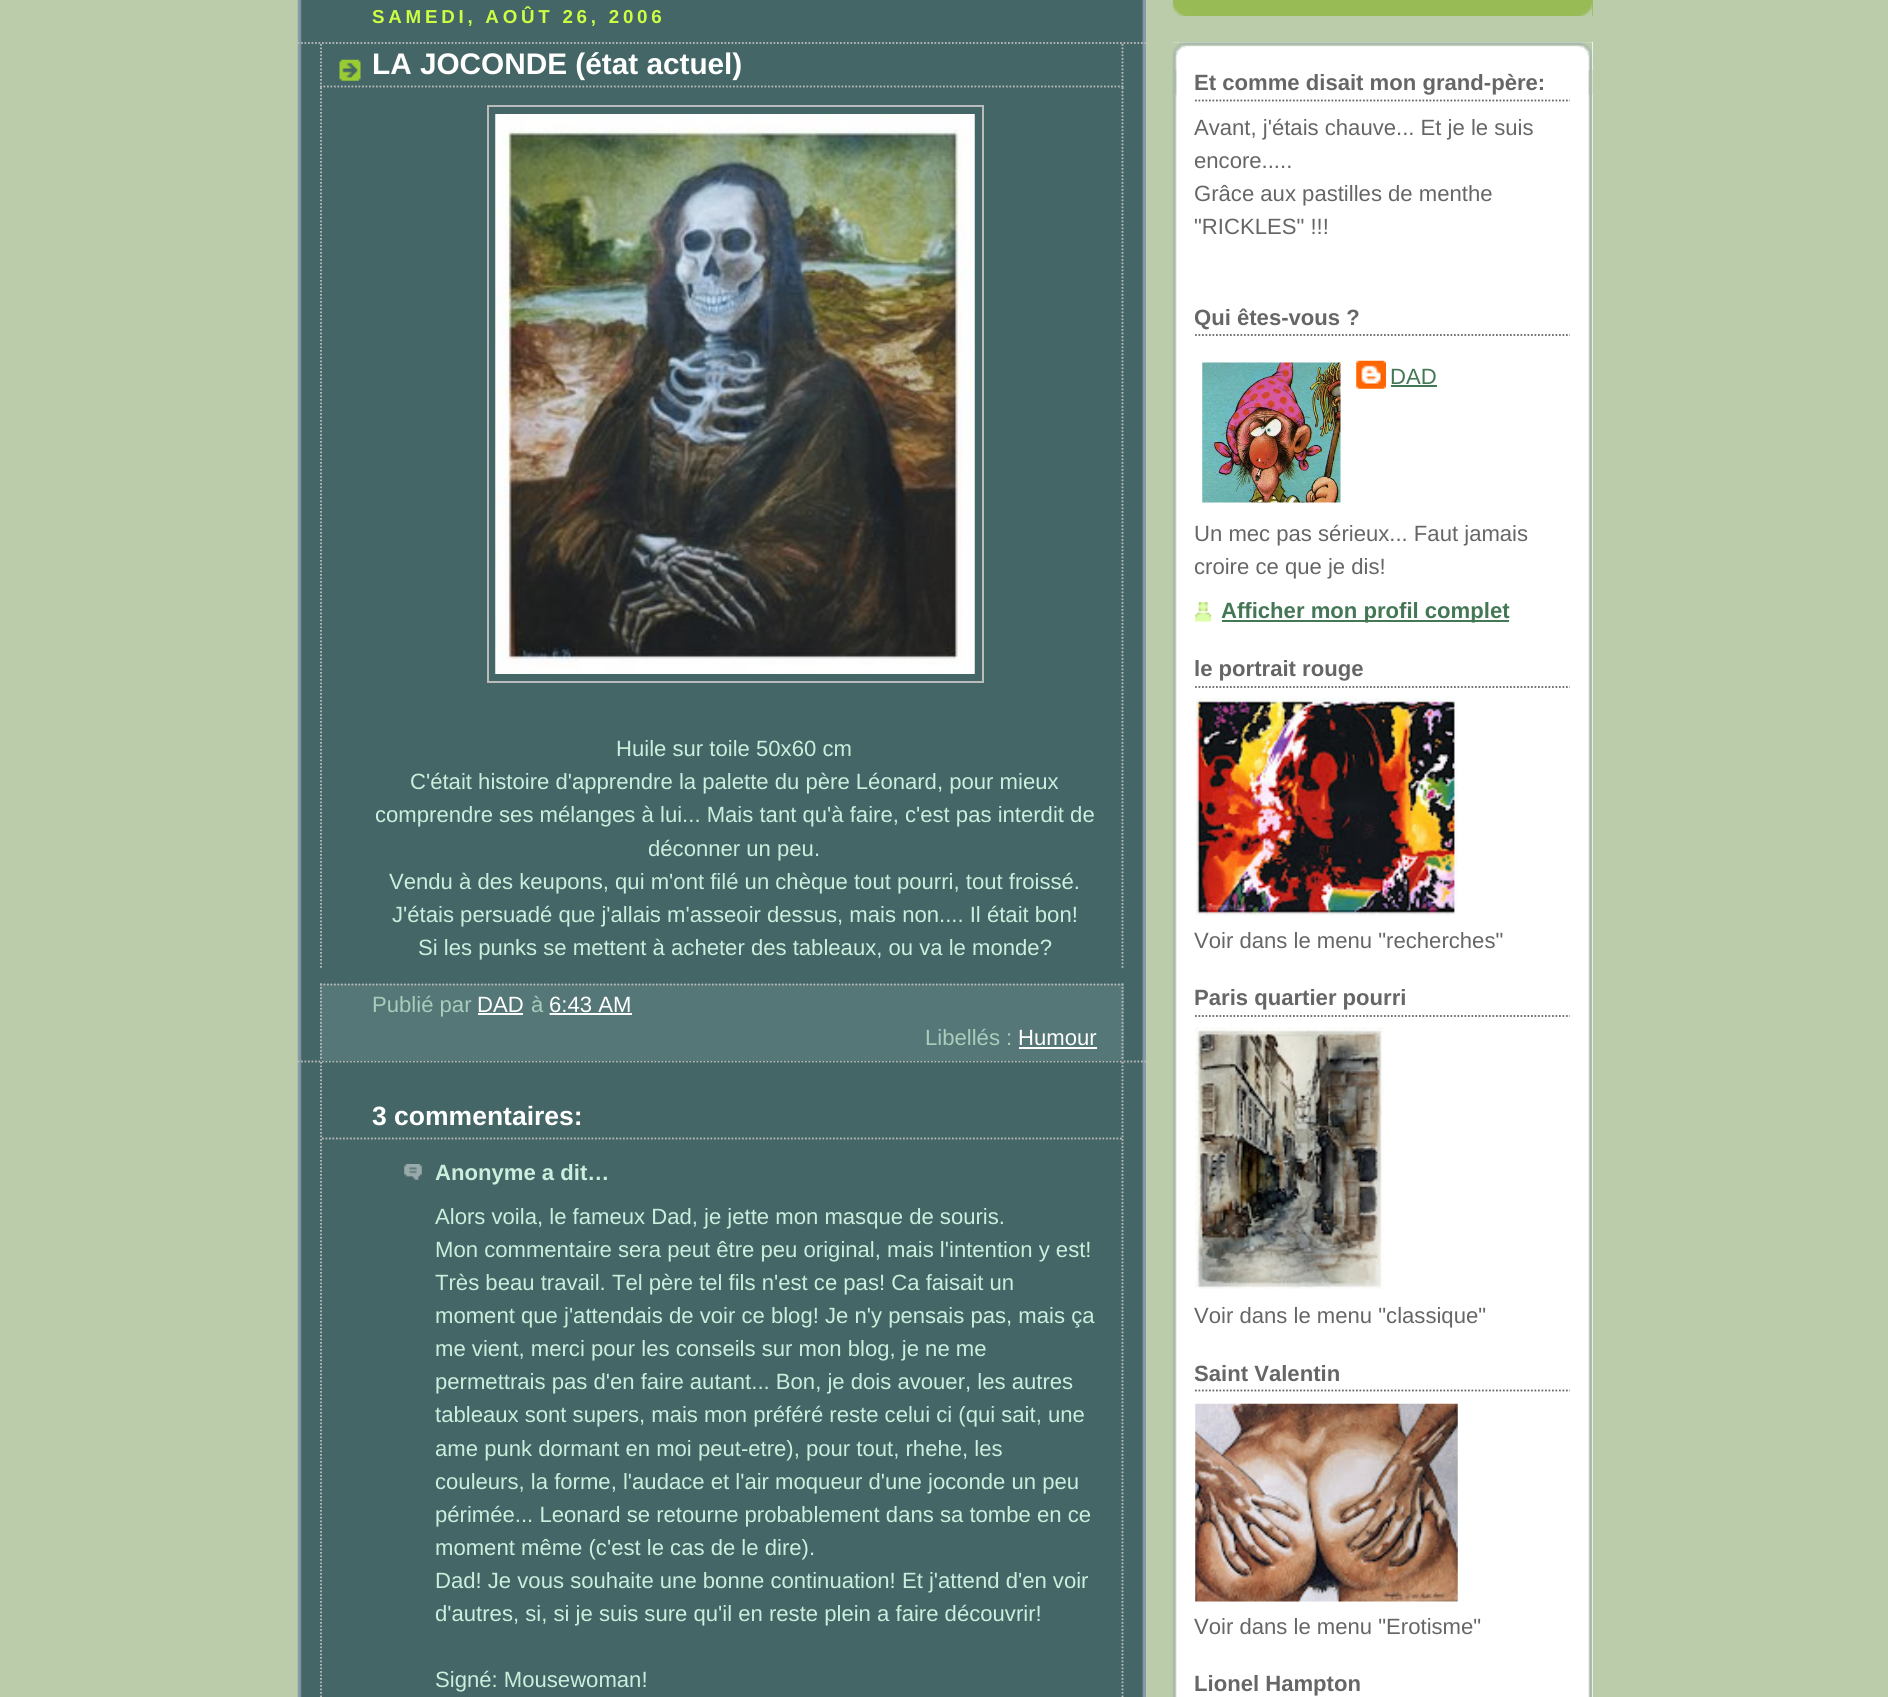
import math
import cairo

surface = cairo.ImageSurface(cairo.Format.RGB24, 1888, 1697)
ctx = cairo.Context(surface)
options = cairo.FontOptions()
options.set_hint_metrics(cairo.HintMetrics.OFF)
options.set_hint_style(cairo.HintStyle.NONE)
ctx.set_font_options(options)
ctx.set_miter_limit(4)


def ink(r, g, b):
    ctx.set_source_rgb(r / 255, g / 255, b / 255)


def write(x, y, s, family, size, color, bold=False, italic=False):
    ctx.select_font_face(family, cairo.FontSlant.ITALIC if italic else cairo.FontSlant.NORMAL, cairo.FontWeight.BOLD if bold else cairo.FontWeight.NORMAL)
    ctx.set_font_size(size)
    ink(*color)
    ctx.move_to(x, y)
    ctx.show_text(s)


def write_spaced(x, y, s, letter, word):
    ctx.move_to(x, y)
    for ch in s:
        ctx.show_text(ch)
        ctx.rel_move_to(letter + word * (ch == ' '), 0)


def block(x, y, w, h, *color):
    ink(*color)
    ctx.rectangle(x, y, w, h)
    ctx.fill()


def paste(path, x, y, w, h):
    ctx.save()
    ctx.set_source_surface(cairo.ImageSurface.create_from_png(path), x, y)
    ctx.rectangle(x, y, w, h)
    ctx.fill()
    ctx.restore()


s1 = dict(family="Liberation Sans", size=29.75, color=(255, 255, 255), bold=True)
s2 = dict(family="Liberation Sans", size=22.1, color=(204, 238, 221))
s3 = dict(family="Liberation Sans", size=22.1, color=(170, 204, 187))
s4 = dict(family="Liberation Sans", size=22.1, color=(255, 255, 255))
s5 = dict(family="Liberation Sans", size=26.5, color=(255, 255, 255), bold=True)
s6 = dict(family="Liberation Sans", size=22.1, color=(204, 238, 221), bold=True)
s7 = dict(family="Liberation Sans", size=22.1, color=(102, 102, 102), bold=True)
s8 = dict(family="Liberation Sans", size=22.1, color=(102, 102, 102))
s9 = dict(family="Liberation Sans", size=22.1, color=(68, 119, 85))
s10 = dict(family="Liberation Sans", size=22.1, color=(68, 119, 85), bold=True)

ink(187, 204, 170)
ctx.paint()
block(300, 0, 844, 1697, 68, 102, 102)
paste("pic1.png", 297, 0, 849, 1697)
ctx.select_font_face("Liberation Sans", cairo.FontSlant.NORMAL, cairo.FontWeight.BOLD)
ctx.set_font_size(18.75)
ink(204, 255, 68)
write_spaced(372, 23, "SAMEDI, AOÛT 26, 2006", 3.75, 0)
ctx.new_path()
ctx.move_to(297.5, 43)
ctx.line_to(1146, 43)
ink(187, 187, 187)
ctx.set_line_width(1.8)
ctx.set_dash([1.75, 1.75])
ctx.stroke()
ctx.save()
ctx.rectangle(298, 0, 848, 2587)
ctx.clip()
ctx.new_path()
ctx.move_to(297.5, 1061.5)
ctx.line_to(1146, 1061.5)
ctx.stroke()
ctx.restore()
paste("pic2.png", 339, 59, 22, 22)
ctx.new_path()
ctx.move_to(1122.5, 44)
ctx.line_to(1122.5, 87.5)
ctx.stroke()
ctx.new_path()
ctx.move_to(320, 86.5)
ctx.line_to(1123.5, 86.5)
ctx.stroke()
ctx.new_path()
ctx.move_to(321, 44)
ctx.line_to(321, 87.5)
ctx.stroke()
write(372, 74, "LA JOCONDE (état actuel)", **s1)
ctx.new_path()
ctx.move_to(1122.5, 87.5)
ctx.line_to(1122.5, 968)
ink(187, 187, 187)
ctx.stroke()
ctx.new_path()
ctx.move_to(321, 87.5)
ctx.line_to(321, 968)
ctx.stroke()
ctx.rectangle(488, 106, 495, 576)
ctx.set_line_width(2)
ctx.set_dash([])
ctx.stroke()
paste("pic3.png", 495, 114, 480, 560)
write(616, 756, "Huile sur toile 50x60 cm", **s2)
write(410, 789, "C'était histoire d'apprendre la palette du père Léonard, pour mieux", **s2)
write(375, 822, "comprendre ses mélanges à lui... Mais tant qu'à faire, c'est pas interdit de", **s2)
write(648, 856, "déconner un peu.", **s2)
write(389, 889, "Vendu à des keupons, qui m'ont filé un chèque tout pourri, tout froissé.", **s2)
write(392, 922, "J'étais persuadé que j'allais m'asseoir dessus, mais non.... Il était bon!", **s2)
write(418, 955, "Si les punks se mettent à acheter des tableaux, ou va le monde?", **s2)
block(320, 984, 804, 77, 85, 119, 119)
ctx.new_path()
ctx.move_to(320, 984.5)
ctx.line_to(1123.5, 984.5)
ink(187, 187, 187)
ctx.set_line_width(1.8)
ctx.set_dash([1.75, 1.75])
ctx.stroke()
ctx.new_path()
ctx.move_to(1122.5, 983.5)
ctx.line_to(1122.5, 1060.5)
ctx.stroke()
ctx.new_path()
ctx.move_to(321, 983.5)
ctx.line_to(321, 1060.5)
ctx.stroke()
write(372, 1012, "Publié par", **s3)
write(477, 1012, "DAD", **s4)
block(478, 1013, 45, 2, 255, 255, 255)
write(531, 1012, "à", **s3)
write(549, 1012, "6:43 AM", **s4)
ctx.new_path()
ctx.move_to(549.5, 1014)
ctx.line_to(631.5, 1014)
ctx.stroke()
block(550, 1013, 82, 2, 255, 255, 255)
write(925, 1045, "Libellés :", **s3)
write(1018, 1045, "Humour", **s4)
block(1019, 1047, 78, 2, 255, 255, 255)
ctx.new_path()
ctx.move_to(1122.5, 1062)
ctx.line_to(1122.5, 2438)
ink(187, 187, 187)
ctx.stroke()
ctx.new_path()
ctx.move_to(321, 1062)
ctx.line_to(321, 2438)
ctx.stroke()
ctx.new_path()
ctx.move_to(322, 1138.5)
ctx.line_to(1122, 1138.5)
ctx.stroke()
write(372, 1125, "3 commentaires:", **s5)
paste("pic4.png", 404, 1164, 18, 16)
write(435, 1180, "Anonyme a dit…", **s6)
write(435, 1224, "Alors voila, le fameux Dad, je jette mon masque de souris.", **s2)
write(435, 1257, "Mon commentaire sera peut être peu original, mais l'intention y est!", **s2)
write(435, 1290, "Très beau travail. Tel père tel fils n'est ce pas! Ca faisait un", **s2)
write(435, 1323, "moment que j'attendais de voir ce blog! Je n'y pensais pas, mais ça", **s2)
write(435, 1356, "me vient, merci pour les conseils sur mon blog, je ne me", **s2)
write(435, 1389, "permettrais pas d'en faire autant... Bon, je dois avouer, les autres", **s2)
write(435, 1422, "tableaux sont supers, mais mon préféré reste celui ci (qui sait, une", **s2)
write(435, 1456, "ame punk dormant en moi peut-etre), pour tout, rhehe, les", **s2)
write(435, 1489, "couleurs, la forme, l'audace et l'air moqueur d'une joconde un peu", **s2)
write(435, 1522, "périmée... Leonard se retourne probablement dans sa tombe en ce", **s2)
write(435, 1555, "moment même (c'est le cas de le dire).", **s2)
write(435, 1588, "Dad! Je vous souhaite une bonne continuation! Et j'attend d'en voir", **s2)
write(435, 1621, "d'autres, si, si je suis sure qu'il en reste plein a faire découvrir!", **s2)
write(435, 1687, "Signé: Mousewoman!", **s2)
block(1173, 0, 420, 16, 153, 187, 85)
paste("pic5.png", 1172, 2, 421, 14)
block(1173, 42, 420, 1655, 255, 255, 255)
paste("pic6.png", 1172, 42, 421, 53)
paste("pic7.png", 1172, 70, 421, 1627)
ctx.new_path()
ctx.move_to(1195, 100.5)
ctx.line_to(1570, 100.5)
ink(102, 102, 102)
ctx.stroke()
write(1194, 90, "Et comme disait mon grand-père:", **s7)
write(1194, 135, "Avant, j'étais chauve... Et je le suis", **s8)
write(1194, 168, "encore.....", **s8)
write(1194, 201, "Grâce aux pastilles de menthe", **s8)
write(1194, 234, "\"RICKLES\" !!!", **s8)
ctx.new_path()
ctx.move_to(1195, 335)
ctx.line_to(1570, 335)
ctx.stroke()
write(1194, 325, "Qui êtes-vous ?", **s7)
paste("pic8.png", 1202, 362, 139, 141)
paste("pic9.png", 1356, 360, 30, 29)
write(1390, 384, "DAD", **s9)
block(1391, 385, 46, 2, 68, 119, 85)
write(1194, 541, "Un mec pas sérieux... Faut jamais", **s8)
write(1194, 574, "croire ce que je dis!", **s8)
paste("pic10.png", 1195, 602, 16, 20)
block(1222, 620, 287, 2, 68, 119, 85)
write(1221, 618, "Afficher mon profil complet", **s10)
ctx.new_path()
ctx.move_to(1195, 687)
ctx.line_to(1570, 687)
ink(102, 102, 102)
ctx.stroke()
write(1194, 676, "le portrait rouge", **s7)
paste("pic11.png", 1195, 698, 263, 218)
write(1194, 948, "Voir dans le menu \"recherches\"", **s8)
ctx.new_path()
ctx.move_to(1195, 1016)
ctx.line_to(1570, 1016)
ctx.stroke()
write(1194, 1005, "Paris quartier pourri", **s7)
paste("pic12.png", 1195, 1027, 189, 262)
write(1194, 1323, "Voir dans le menu \"classique\"", **s8)
ctx.new_path()
ctx.move_to(1195, 1390.5)
ctx.line_to(1570, 1390.5)
ctx.stroke()
write(1194, 1381, "Saint Valentin", **s7)
paste("pic13.png", 1195, 1403, 263, 199)
write(1194, 1634, "Voir dans le menu \"Erotisme\"", **s8)
write(1194, 1691, "Lionel Hampton", **s7)
surface.write_to_png("screenshot.png")
